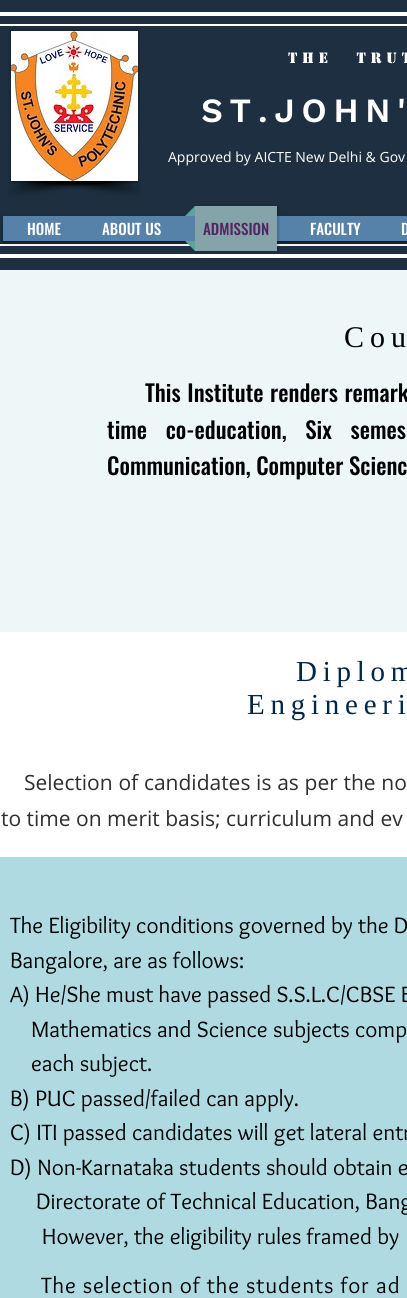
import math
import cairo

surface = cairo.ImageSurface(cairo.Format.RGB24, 407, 1298)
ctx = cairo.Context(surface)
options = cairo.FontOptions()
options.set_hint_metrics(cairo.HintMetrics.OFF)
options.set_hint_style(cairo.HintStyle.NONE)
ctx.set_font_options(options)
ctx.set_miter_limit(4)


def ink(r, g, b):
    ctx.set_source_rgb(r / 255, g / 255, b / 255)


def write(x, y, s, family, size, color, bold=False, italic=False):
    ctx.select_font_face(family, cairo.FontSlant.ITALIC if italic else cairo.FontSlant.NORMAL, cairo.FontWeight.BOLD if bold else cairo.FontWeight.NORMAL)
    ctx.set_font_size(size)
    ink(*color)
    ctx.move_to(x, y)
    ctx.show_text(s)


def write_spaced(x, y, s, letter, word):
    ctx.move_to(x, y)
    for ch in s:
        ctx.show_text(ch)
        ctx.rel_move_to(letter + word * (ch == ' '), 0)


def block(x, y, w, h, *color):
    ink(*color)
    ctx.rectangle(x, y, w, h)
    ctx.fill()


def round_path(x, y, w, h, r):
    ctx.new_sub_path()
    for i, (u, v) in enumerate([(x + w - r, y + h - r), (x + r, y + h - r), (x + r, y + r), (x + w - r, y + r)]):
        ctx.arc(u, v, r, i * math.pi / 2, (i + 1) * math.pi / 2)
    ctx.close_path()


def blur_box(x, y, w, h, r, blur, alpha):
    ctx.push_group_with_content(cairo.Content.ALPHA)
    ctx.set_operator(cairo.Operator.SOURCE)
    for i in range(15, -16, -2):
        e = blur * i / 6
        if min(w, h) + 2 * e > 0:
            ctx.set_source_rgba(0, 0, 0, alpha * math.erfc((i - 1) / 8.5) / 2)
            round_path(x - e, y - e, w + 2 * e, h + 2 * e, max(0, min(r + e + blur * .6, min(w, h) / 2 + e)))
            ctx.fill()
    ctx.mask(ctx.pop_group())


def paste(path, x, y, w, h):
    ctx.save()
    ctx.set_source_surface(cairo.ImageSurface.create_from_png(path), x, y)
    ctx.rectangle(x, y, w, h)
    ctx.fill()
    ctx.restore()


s1 = dict(family="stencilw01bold", size=14, color=(255, 255, 255), bold=True)
s2 = dict(family="Open Sans", size=14, color=(255, 255, 255))
s3 = dict(family="Oswald Medium", size=15, color=(255, 255, 255))
s4 = dict(family="Oswald Medium", size=15, color=(83, 37, 99))
s5 = dict(family="Oswald Medium", size=23, color=(0, 0, 0))
s6 = dict(family="Open Sans", size=21, color=(47, 46, 46))
s7 = dict(family="Overlock", size=23, color=(0, 0, 0))

ink(29, 47, 64)
ctx.paint()
block(0, 12, 407, 4, 255, 255, 255)
block(0, 254, 407, 4, 255, 255, 255)
block(0, 24, 407, 2, 255, 255, 255)
block(0, 244, 407, 2, 255, 255, 255)
ink(0, 0, 0)
blur_box(11, 31, 127, 150, 0, 1.5, 0.5)
paste("pic1.png", 11, 31, 127, 150)
paste("pic2.png", 8, 181, 132, 15)
paste("pic3.png", 9, 181, 132, 15)
write(288, 63, "T H E      T R U T", **s1)
ctx.select_font_face("Work Sans SemiBold")
ctx.set_font_size(34)
write_spaced(201, 122, "ST.JOHN'", 6.75, 0)
write(168, 162, "Approved by AICTE New Delhi & Gov", **s2)
ink(0, 0, 0)
blur_box(3, 218, 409, 25, 0, 1.5, 0.42)
block(3, 216, 404, 25, 86, 130, 169)
write(27, 235, "HOME", **s3)
write(102, 235, "ABOUT US", **s3)
ink(0, 0, 0)
blur_box(197, 206, 82, 45, 0, 1, 0.2)
ink(95, 161, 155)
ctx.new_path()
ctx.move_to(195, 216)
ctx.line_to(185, 216)
ctx.line_to(195, 206)
ctx.close_path()
ctx.move_to(185, 241)
ctx.line_to(195, 241)
ctx.line_to(195, 251)
ctx.close_path()
ctx.fill()
block(195, 206, 82, 45, 132, 164, 169)
write(203, 235, "ADMISSION", **s4)
write(310, 235, "FACULTY", **s3)
write(401, 235, "D", **s3)
block(0, 270, 407, 362, 237, 247, 247)
ctx.select_font_face("Liberation Serif")
ctx.set_font_size(30)
ink(0, 0, 0)
write_spaced(344, 347, "Cou", 6, 0)
ctx.select_font_face("Oswald Medium")
ctx.set_font_size(23)
write_spaced(145, 402, "This Institute renders remark", 0, 1)
write_spaced(107, 439, "time co-education, Six semes", 0, 13)
write(107, 475, "Communication, Computer Scienc", **s5)
block(0, 632, 407, 225, 255, 255, 255)
ctx.select_font_face("Liberation Serif")
ctx.set_font_size(29)
ink(1, 38, 70)
write_spaced(296, 681, "Diplom", 5.75, 0)
write_spaced(247, 714, "Engineeri", 5.75, 0)
ctx.select_font_face("Open Sans")
ctx.set_font_size(21)
ink(47, 46, 46)
write_spaced(24, 790, "Selection of candidates is as per the no", 0, 0.25)
write(1, 826, "to time on merit basis; curriculum and ev", **s6)
block(0, 857, 407, 441, 176, 218, 225)
write(10, 933, "The Eligibility conditions governed by the D", **s7)
write(10, 968, "Bangalore, are as follows:", **s7)
write(10, 1002, "A) He/She must have passed S.S.L.C/CBSE E", **s7)
write(31, 1037, "Mathematics and Science subjects comp", **s7)
write(31, 1071, "each subject.", **s7)
write(10, 1106, "B) PUC passed/failed can apply.", **s7)
write(10, 1140, "C) ITI passed candidates will get lateral entr", **s7)
write(10, 1175, "D) Non-Karnataka students should obtain e", **s7)
write(36, 1209, "Directorate of Technical Education, Bang", **s7)
write(42, 1244, "However, the eligibility rules framed by", **s7)
write_spaced(41, 1293, "The selection of the students for", 0.85, 0)
write_spaced(376, 1293, "ad", 1, 0)
surface.write_to_png("screenshot.png")
